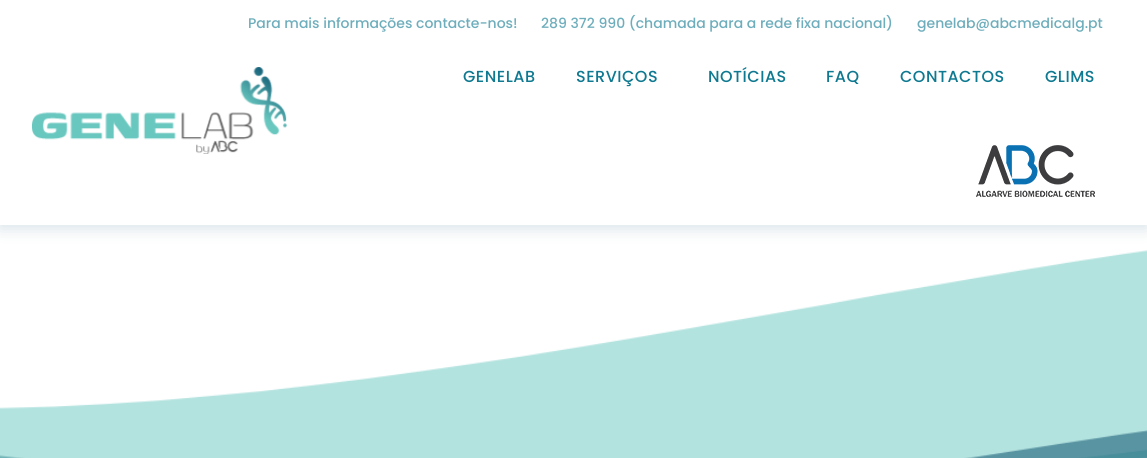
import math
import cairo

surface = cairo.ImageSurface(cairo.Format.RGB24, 1147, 458)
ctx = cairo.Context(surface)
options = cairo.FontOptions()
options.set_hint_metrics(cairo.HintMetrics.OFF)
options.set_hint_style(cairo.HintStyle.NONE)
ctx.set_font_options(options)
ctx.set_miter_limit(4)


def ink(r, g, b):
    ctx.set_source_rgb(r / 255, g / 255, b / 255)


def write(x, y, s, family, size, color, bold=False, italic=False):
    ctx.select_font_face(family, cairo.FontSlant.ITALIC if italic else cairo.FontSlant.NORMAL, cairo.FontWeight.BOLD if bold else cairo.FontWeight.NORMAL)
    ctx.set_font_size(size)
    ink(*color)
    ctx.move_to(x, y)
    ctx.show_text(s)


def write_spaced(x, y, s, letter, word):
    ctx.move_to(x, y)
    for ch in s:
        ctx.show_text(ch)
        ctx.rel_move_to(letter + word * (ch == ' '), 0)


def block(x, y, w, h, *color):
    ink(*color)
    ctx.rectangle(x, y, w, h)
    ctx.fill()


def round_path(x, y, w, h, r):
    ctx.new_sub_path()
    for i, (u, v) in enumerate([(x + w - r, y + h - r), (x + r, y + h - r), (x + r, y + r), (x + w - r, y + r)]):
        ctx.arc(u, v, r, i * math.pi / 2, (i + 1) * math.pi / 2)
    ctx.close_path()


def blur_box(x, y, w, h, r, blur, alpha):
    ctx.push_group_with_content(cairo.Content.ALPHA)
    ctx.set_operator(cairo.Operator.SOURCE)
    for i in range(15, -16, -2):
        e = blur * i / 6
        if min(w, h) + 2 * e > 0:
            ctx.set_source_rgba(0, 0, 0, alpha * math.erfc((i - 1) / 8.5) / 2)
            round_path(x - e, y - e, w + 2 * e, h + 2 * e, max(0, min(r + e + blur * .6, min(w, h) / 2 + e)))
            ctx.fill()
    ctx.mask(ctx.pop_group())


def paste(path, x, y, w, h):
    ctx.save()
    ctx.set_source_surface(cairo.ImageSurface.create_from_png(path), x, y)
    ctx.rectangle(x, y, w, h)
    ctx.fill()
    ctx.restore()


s1 = dict(family="Poppins Medium", size=14, color=(110, 174, 188))

ink(255, 255, 255)
ctx.paint()
paste("pic3.png", 0, 250, 1147, 208)
ink(0, 70, 103)
blur_box(0, 4, 1147, 225, 0, 8, 0.15)
block(0, 0, 1147, 225, 255, 255, 255)
write(248, 28, "Para mais informações contacte-nos!", **s1)
write(541, 28, "289 372 990 (chamada para a rede fixa nacional)", **s1)
write(917, 28, "genelab@abcmedicalg.pt", **s1)
paste("pic1.png", 32, 67, 255, 87)
ctx.set_font_size(16)
ink(14, 121, 144)
write_spaced(463, 82, "GENELAB", 0.5, 0)
write_spaced(576, 82, "SERVIÇOS", 0.5, 0)
write_spaced(708, 82, "NOTÍCIAS", 0.5, 0)
write_spaced(826, 82, "FAQ", 0.5, 0)
write_spaced(900, 82, "CONTACTOS", 0.5, 0)
write_spaced(1045, 82, "GLIMS", 0.5, 0)
paste("pic2.png", 976, 145, 119, 52)
surface.write_to_png("screenshot.png")
